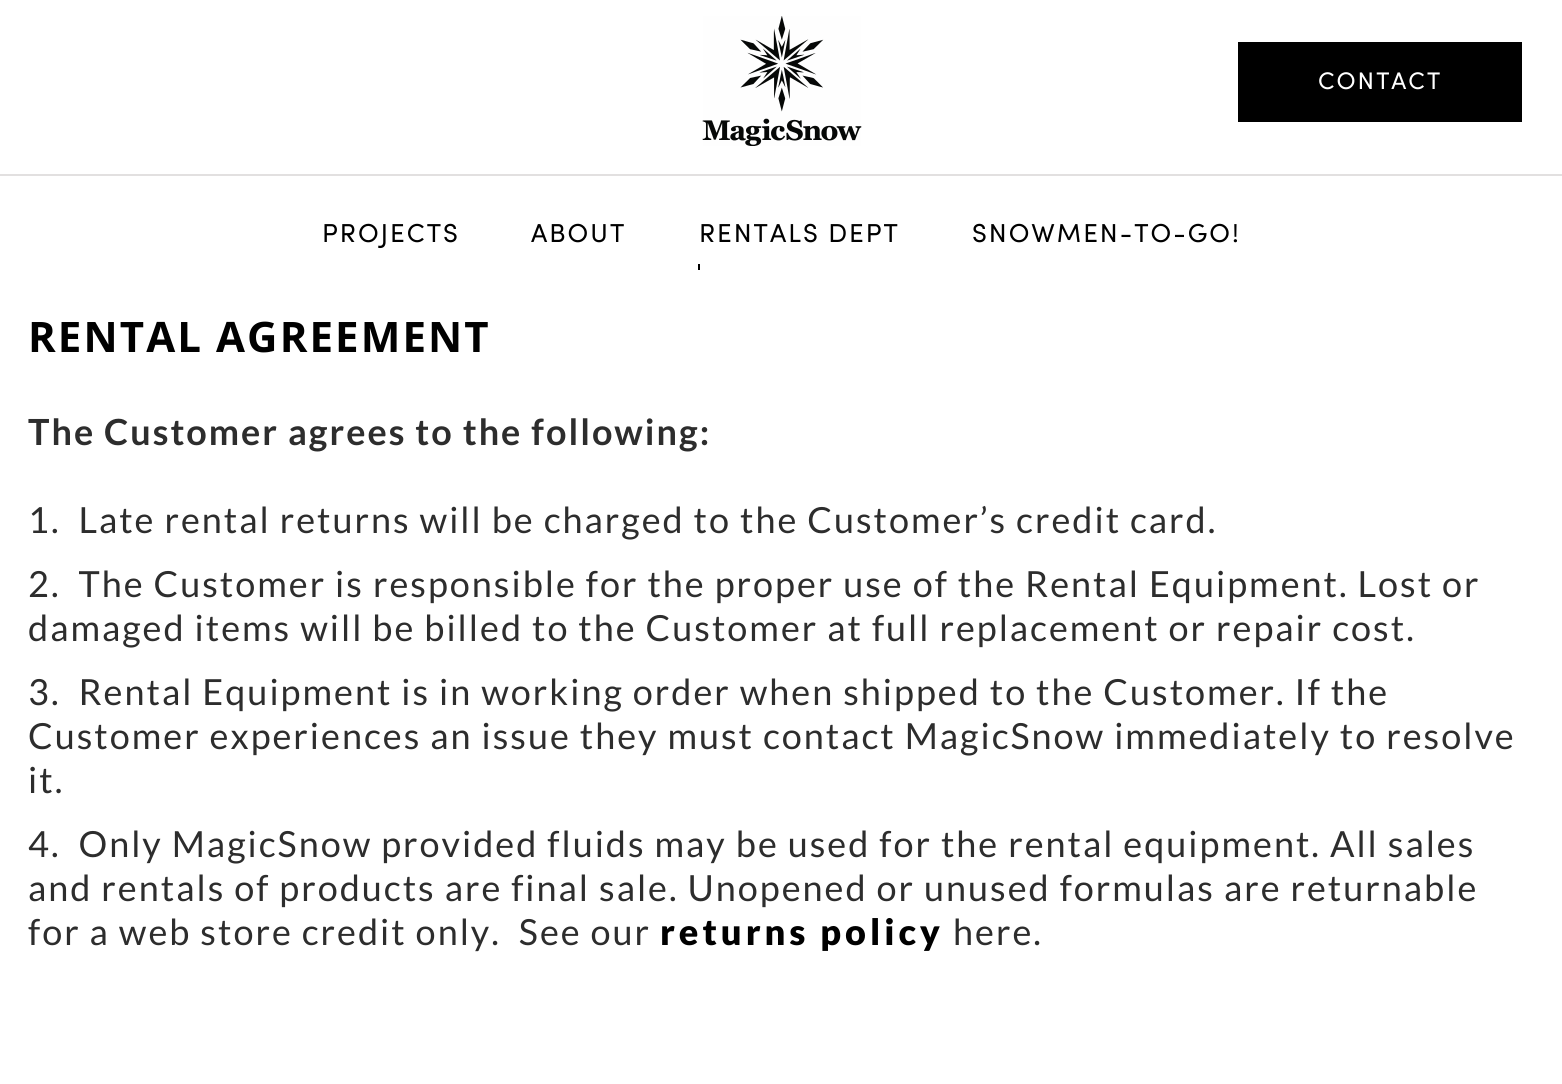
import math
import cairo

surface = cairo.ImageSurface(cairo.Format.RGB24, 1562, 1084)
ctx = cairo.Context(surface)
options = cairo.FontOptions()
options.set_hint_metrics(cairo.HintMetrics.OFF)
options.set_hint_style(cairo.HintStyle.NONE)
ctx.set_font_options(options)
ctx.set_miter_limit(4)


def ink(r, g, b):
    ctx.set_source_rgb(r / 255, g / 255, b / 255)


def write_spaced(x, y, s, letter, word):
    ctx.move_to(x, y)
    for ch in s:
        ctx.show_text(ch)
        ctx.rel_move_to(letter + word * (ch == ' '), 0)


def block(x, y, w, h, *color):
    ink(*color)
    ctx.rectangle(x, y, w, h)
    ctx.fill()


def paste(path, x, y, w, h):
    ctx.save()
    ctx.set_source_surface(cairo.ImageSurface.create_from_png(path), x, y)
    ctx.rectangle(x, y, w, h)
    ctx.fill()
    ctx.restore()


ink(255, 255, 255)
ctx.paint()
block(0, 174, 1562, 2, 226, 224, 224)
paste("pic1.png", 702, 16, 160, 130)
block(1238, 42, 284, 80, 0, 0, 0)
ctx.select_font_face("Sofia")
ctx.set_font_size(24)
ink(255, 255, 255)
write_spaced(1318, 89, "CONTACT", 2, 0)
ctx.set_font_size(26)
ink(0, 0, 0)
write_spaced(322, 242, "PROJECTS", 2, 0)
write_spaced(531, 242, "ABOUT", 2, 0)
write_spaced(699, 242, "RENTALS DEPT", 2, 0)
block(698, 264, 2, 6, 0, 0, 0)
write_spaced(972, 242, "SNOWMEN-TO-GO!", 2, 0)
ctx.select_font_face("Open Sans", cairo.FontSlant.NORMAL, cairo.FontWeight.BOLD)
ctx.set_font_size(42)
write_spaced(28, 352, "RENTAL AGREEMENT", 2.1, 0)
ctx.select_font_face("Lato", cairo.FontSlant.NORMAL, cairo.FontWeight.BOLD)
ctx.set_font_size(36)
ink(45, 45, 45)
write_spaced(28, 445, "The Customer agrees to the following:", 2, 0)
ctx.select_font_face("Lato")
write_spaced(28, 533, "1.  Late rental returns will be charged to the Customer’s credit card.", 2, 0)
write_spaced(28, 597, "2.  The Customer is responsible for the proper use of the Rental Equipment. Lost or", 2, 0)
write_spaced(28, 641, "damaged items will be billed to the Customer at full replacement or repair cost.", 2, 0)
write_spaced(28, 705, "3.  Rental Equipment is in working order when shipped to the Customer. If the", 2, 0)
write_spaced(28, 749, "Customer experiences an issue they must contact MagicSnow immediately to resolve", 2, 0)
write_spaced(28, 793, "it.", 2, 0)
write_spaced(28, 857, "4.  Only MagicSnow provided fluids may be used for the rental equipment. All sales", 2, 0)
write_spaced(28, 901, "and rentals of products are final sale. Unopened or unused formulas are returnable", 2, 0)
write_spaced(28, 945, "for a web store credit only.  See our", 2, 0)
ctx.select_font_face("Lato Black")
ink(0, 0, 0)
write_spaced(660, 945, "returns policy", 4, 0)
ctx.select_font_face("Lato")
ink(45, 45, 45)
write_spaced(953, 945, "here.", 2, 0)
surface.write_to_png("screenshot.png")
